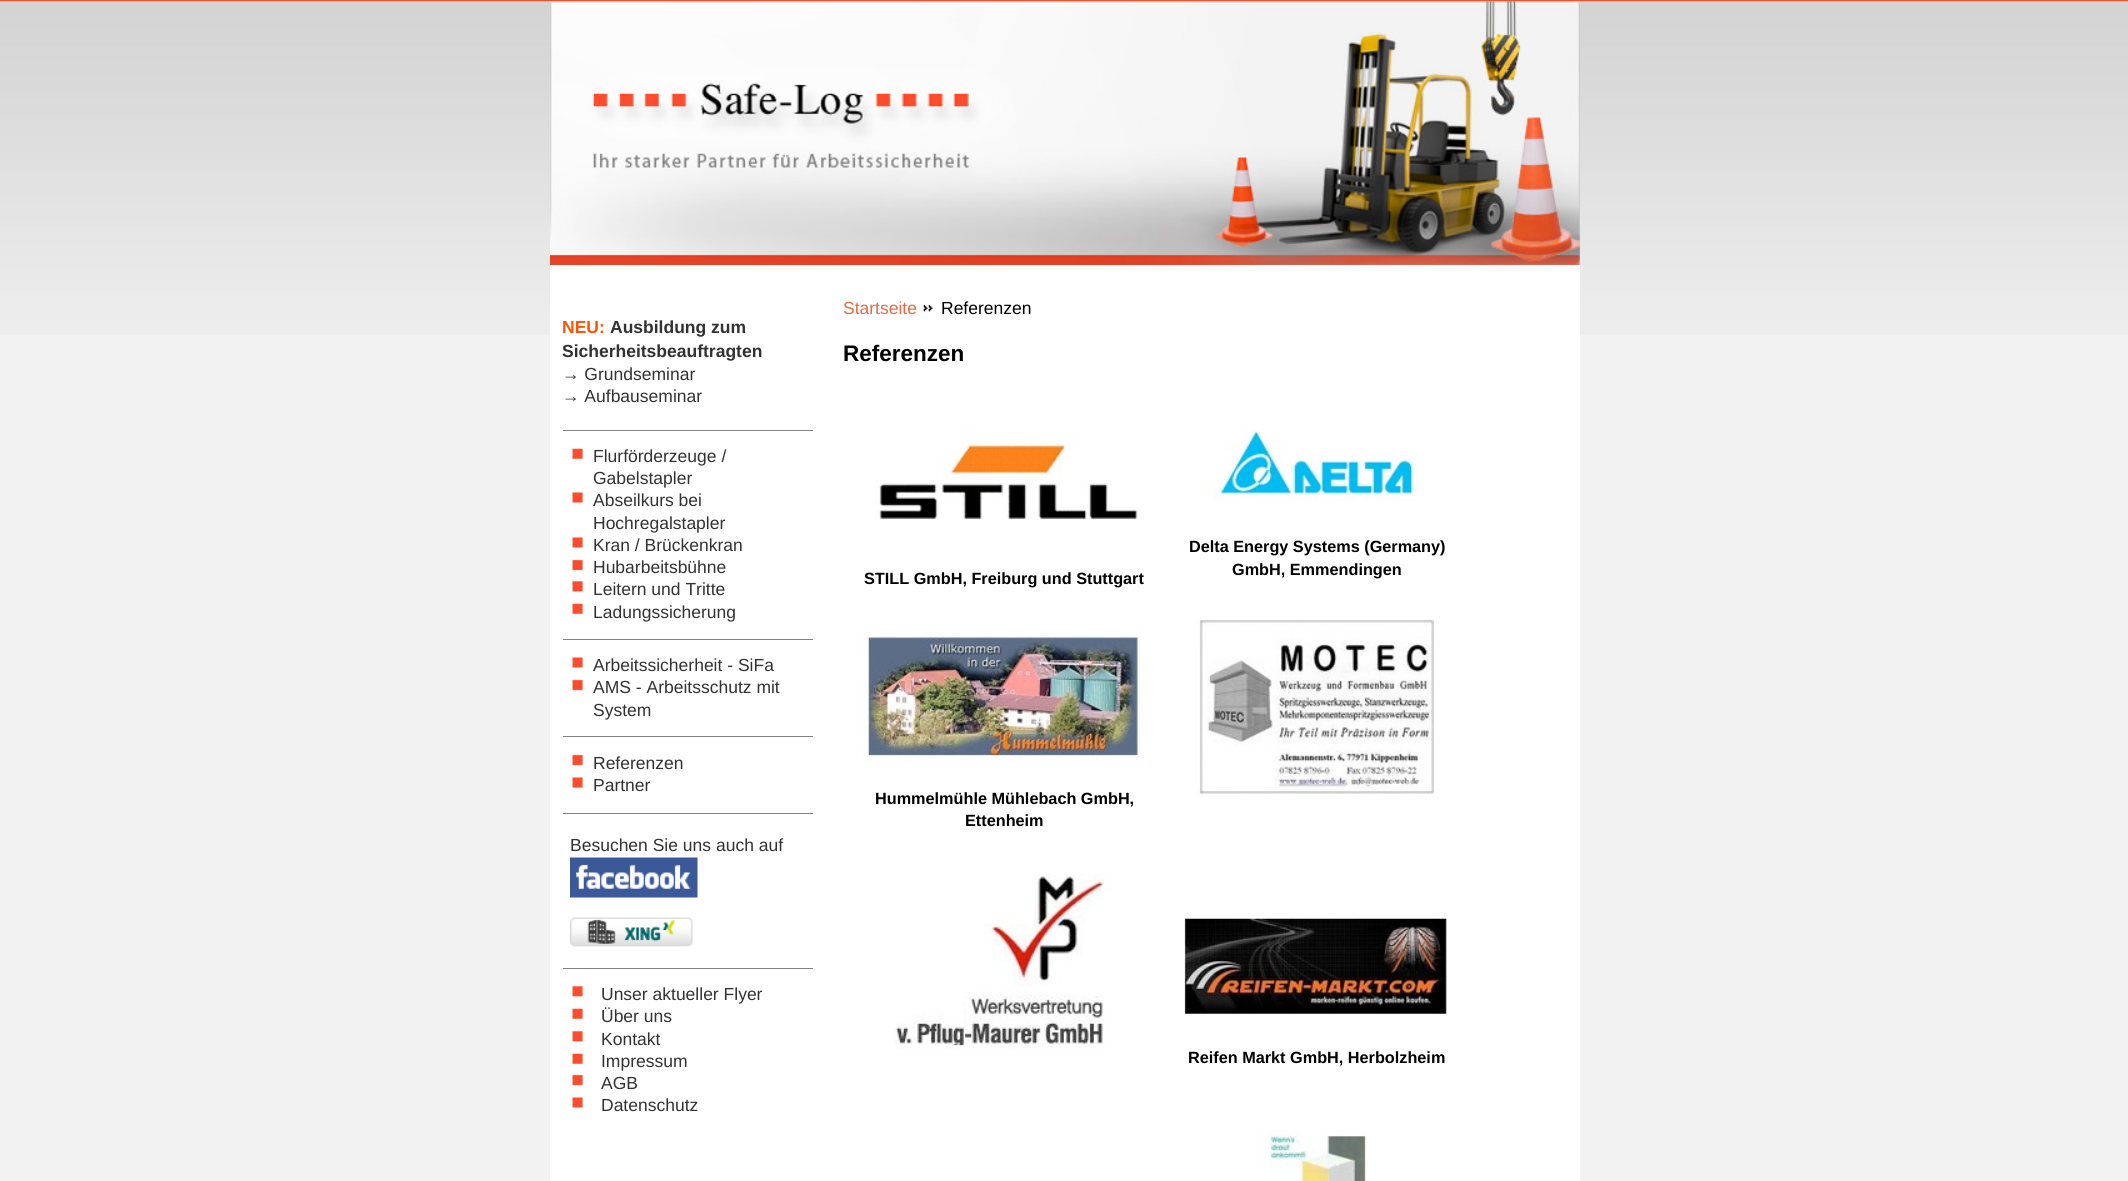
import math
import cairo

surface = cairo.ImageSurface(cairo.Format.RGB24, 2128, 1181)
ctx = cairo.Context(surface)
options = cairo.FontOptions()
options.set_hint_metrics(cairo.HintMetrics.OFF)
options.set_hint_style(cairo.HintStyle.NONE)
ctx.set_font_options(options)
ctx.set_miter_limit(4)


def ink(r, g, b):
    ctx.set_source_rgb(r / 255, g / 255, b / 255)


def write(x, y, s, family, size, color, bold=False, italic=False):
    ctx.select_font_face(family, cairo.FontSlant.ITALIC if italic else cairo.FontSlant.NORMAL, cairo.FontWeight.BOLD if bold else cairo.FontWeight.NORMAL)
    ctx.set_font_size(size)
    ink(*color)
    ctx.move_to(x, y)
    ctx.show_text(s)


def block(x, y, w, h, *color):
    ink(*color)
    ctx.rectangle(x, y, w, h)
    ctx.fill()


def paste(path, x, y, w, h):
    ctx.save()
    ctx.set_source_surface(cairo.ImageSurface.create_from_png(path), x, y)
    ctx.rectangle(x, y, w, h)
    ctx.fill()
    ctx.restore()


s1 = dict(family="Liberation Sans", size=17.5, color=(255, 84, 5), bold=True)
s2 = dict(family="Liberation Sans", size=17.5, color=(51, 50, 50), bold=True)
s3 = dict(family="Liberation Sans", size=17.5, color=(51, 50, 50))
s4 = dict(family="Liberation Sans", size=17.5, color=(232, 105, 67))
s5 = dict(family="Liberation Sans", size=17.5, color=(0, 0, 0))
s6 = dict(family="Liberation Sans", size=22.5, color=(0, 0, 0), bold=True)
s7 = dict(family="Liberation Sans", size=16.25, color=(0, 0, 0), bold=True)

ink(242, 242, 242)
ctx.paint()
paste("pic1.png", 0, 0, 2128, 335)
paste("pic2.png", 550, 1, 1030, 264)
block(550, 265, 1030, 916, 255, 255, 255)
write(562, 333, "NEU:", **s1)
write(610, 333, "Ausbildung zum", **s2)
write(562, 357, "Sicherheitsbeauftragten", **s2)
write(562, 380, "→ Grundseminar", **s3)
write(562, 402, "→ Aufbauseminar", **s3)
block(563, 430, 250, 1, 128, 128, 128)
paste("pic3.png", 570, 447, 15, 16)
write(593, 462, "Flurförderzeuge /", **s3)
write(593, 484, "Gabelstapler", **s3)
paste("pic4.png", 570, 491, 15, 15)
write(593, 506, "Abseilkurs bei", **s3)
write(593, 529, "Hochregalstapler", **s3)
paste("pic4.png", 570, 536, 15, 15)
write(593, 551, "Kran / Brückenkran", **s3)
paste("pic5.png", 570, 558, 15, 16)
write(593, 573, "Hubarbeitsbühne", **s3)
paste("pic6.png", 570, 580, 15, 15)
write(593, 595, "Leitern und Tritte", **s3)
paste("pic3.png", 570, 602, 15, 16)
write(593, 618, "Ladungssicherung", **s3)
block(563, 639, 250, 1, 128, 128, 128)
paste("pic4.png", 570, 656, 15, 15)
write(593, 671, "Arbeitssicherheit - SiFa", **s3)
paste("pic5.png", 570, 678, 15, 16)
write(593, 693, "AMS - Arbeitsschutz mit", **s3)
write(593, 716, "System", **s3)
block(563, 736, 250, 1, 128, 128, 128)
paste("pic5.png", 570, 753, 15, 16)
write(593, 769, "Referenzen", **s3)
paste("pic7.png", 570, 776, 15, 15)
write(593, 791, "Partner", **s3)
block(563, 813, 250, 1, 128, 128, 128)
write(570, 851, "Besuchen Sie uns auch auf", **s3)
paste("pic8.png", 570, 857, 128, 41)
paste("pic9.png", 570, 917, 123, 30)
block(563, 968, 250, 1, 128, 128, 128)
paste("pic10.png", 570, 985, 15, 15)
write(601, 1000, "Unser aktueller Flyer", **s3)
paste("pic3.png", 570, 1007, 15, 16)
write(601, 1022, "Über uns", **s3)
paste("pic10.png", 570, 1030, 15, 15)
write(601, 1045, "Kontakt", **s3)
paste("pic3.png", 570, 1052, 15, 16)
write(601, 1067, "Impressum", **s3)
paste("pic5.png", 570, 1073, 15, 16)
write(601, 1089, "AGB", **s3)
paste("pic4.png", 570, 1096, 15, 15)
write(601, 1111, "Datenschutz", **s3)
write(843, 314, "Startseite", **s4)
paste("pic11.png", 923, 304, 10, 8)
write(941, 314, "Referenzen", **s5)
write(843, 361, "Referenzen", **s6)
paste("pic12.png", 875, 430, 263, 90)
write(864, 584, "STILL GmbH, Freiburg und Stuttgart", **s7)
paste("pic13.png", 1206, 428, 213, 73)
write(1189, 552, "Delta Energy Systems (Germany)", **s7)
write(1232, 575, "GmbH, Emmendingen", **s7)
paste("pic14.png", 1198, 619, 236, 176)
paste("pic15.png", 862, 631, 280, 134)
write(875, 804, "Hummelmühle Mühlebach GmbH,", **s7)
write(965, 826, "Ettenheim", **s7)
paste("pic16.png", 894, 873, 218, 177)
paste("pic17.png", 1184, 918, 263, 96)
write(1188, 1063, "Reifen Markt GmbH, Herbolzheim", **s7)
paste("pic18.png", 1260, 1129, 106, 52)
surface.write_to_png("screenshot.png")
